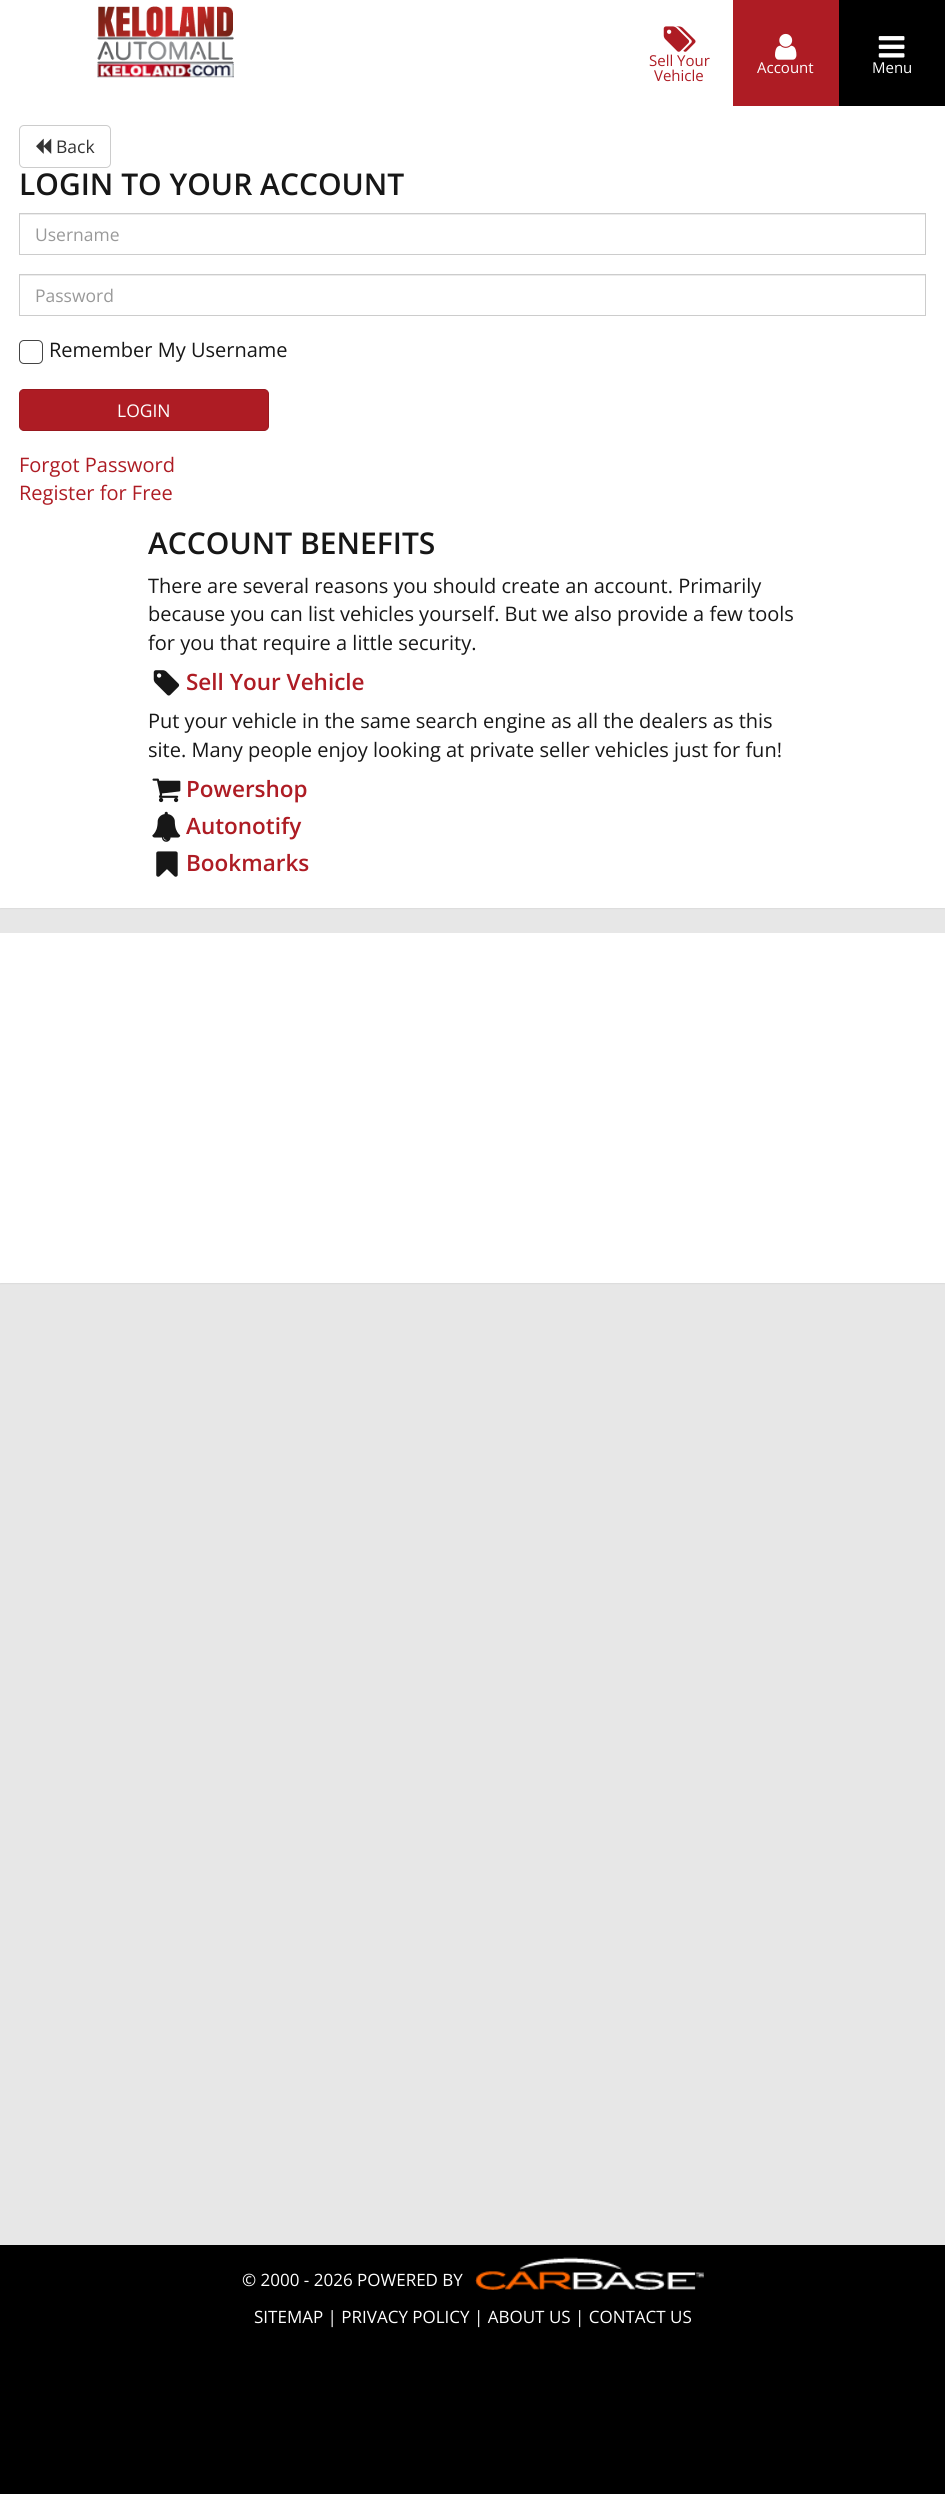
import math
import cairo

surface = cairo.ImageSurface(cairo.Format.RGB24, 945, 2494)
ctx = cairo.Context(surface)
options = cairo.FontOptions()
options.set_hint_metrics(cairo.HintMetrics.OFF)
options.set_hint_style(cairo.HintStyle.NONE)
ctx.set_font_options(options)
ctx.set_miter_limit(4)


def ink(r, g, b):
    ctx.set_source_rgb(r / 255, g / 255, b / 255)


def write(x, y, s, family, size, color, bold=False, italic=False):
    ctx.select_font_face(family, cairo.FontSlant.ITALIC if italic else cairo.FontSlant.NORMAL, cairo.FontWeight.BOLD if bold else cairo.FontWeight.NORMAL)
    ctx.set_font_size(size)
    ink(*color)
    ctx.move_to(x, y)
    ctx.show_text(s)


def block(x, y, w, h, *color):
    ink(*color)
    ctx.rectangle(x, y, w, h)
    ctx.fill()


def round_path(x, y, w, h, r):
    ctx.new_sub_path()
    for i, (u, v) in enumerate([(x + w - r, y + h - r), (x + r, y + h - r), (x + r, y + r), (x + w - r, y + r)]):
        ctx.arc(u, v, r, i * math.pi / 2, (i + 1) * math.pi / 2)
    ctx.close_path()


def blur_box(x, y, w, h, r, blur, alpha):
    ctx.push_group_with_content(cairo.Content.ALPHA)
    ctx.set_operator(cairo.Operator.SOURCE)
    for i in range(15, -16, -2):
        e = blur * i / 6
        if min(w, h) + 2 * e > 0:
            ctx.set_source_rgba(0, 0, 0, alpha * math.erfc((i - 1) / 8.5) / 2)
            round_path(x - e, y - e, w + 2 * e, h + 2 * e, max(0, min(r + e + blur * .6, min(w, h) / 2 + e)))
            ctx.fill()
    ctx.mask(ctx.pop_group())


def paste(path, x, y, w, h):
    ctx.save()
    ctx.set_source_surface(cairo.ImageSurface.create_from_png(path), x, y)
    ctx.rectangle(x, y, w, h)
    ctx.fill()
    ctx.restore()


s1 = dict(family="Open Sans", size=15, color=(174, 28, 36))
s2 = dict(family="Open Sans", size=15, color=(255, 255, 255))
s3 = dict(family="Open Sans", size=17.5, color=(51, 51, 51))
s4 = dict(family="Open Sans SemiBold", size=30, color=(23, 23, 23))
s5 = dict(family="Open Sans", size=17.5, color=(153, 153, 153))
s6 = dict(family="Open Sans", size=20, color=(23, 23, 23))
s7 = dict(family="Open Sans", size=17.5, color=(255, 255, 255))
s8 = dict(family="Open Sans", size=20, color=(174, 28, 36))
s9 = dict(family="Open Sans SemiBold", size=22.5, color=(174, 28, 36))
s10 = dict(family="Open Sans", size=17, color=(255, 255, 255))

ink(231, 231, 231)
ctx.paint()
block(0, 0, 733, 106, 255, 255, 255)
paste("pic1.png", 97, 6, 137, 58)
paste("pic2.png", 97, 63, 137, 15)
paste("pic3.png", 663, 26, 33, 26)
write(649, 66, "Sell Your", **s1)
write(654, 81, "Vehicle", **s1)
ink(0, 0, 0)
blur_box(0, 108, 945, 801, 0, 0.5, 0.05)
block(733, 0, 106, 106, 174, 28, 36)
paste("pic4.png", 775, 33, 22, 27)
write(757, 73, "Account", **s2)
block(839, 0, 106, 106, 0, 0, 0)
paste("pic5.png", 878, 36, 27, 22)
write(872, 73, "Menu", **s2)
block(0, 106, 945, 802, 255, 255, 255)
round_path(19.5, 125.5, 91, 42, 4.5)
ink(204, 204, 204)
ctx.set_line_width(1)
ctx.stroke()
paste("pic6.png", 36, 138, 16, 16)
write(56, 153, "Back", **s3)
write(19, 195, "LOGIN TO YOUR ACCOUNT", **s4)
block(20, 214, 905, 1, 236, 236, 236)
ctx.rectangle(19.5, 213.5, 906, 41)
ink(204, 204, 204)
ctx.stroke()
write(35, 241, "Username", **s5)
block(20, 275, 905, 1, 236, 236, 236)
ctx.rectangle(19.5, 274.5, 906, 41)
ink(204, 204, 204)
ctx.stroke()
write(35, 302, "Password", **s5)
round_path(19.5, 340.5, 23, 23, 4.5)
ink(68, 68, 68)
ctx.stroke()
write(49, 357, "Remember My Username", **s6)
ink(174, 28, 36)
round_path(19.5, 389.5, 249, 41, 4.5)
ctx.fill_preserve()
ink(152, 24, 31)
ctx.stroke()
write(117, 417, "LOGIN", **s7)
write(19, 472, "Forgot Password", **s8)
write(19, 500, "Register for Free", **s8)
write(148, 554, "ACCOUNT BENEFITS", **s4)
write(148, 593, "There are several reasons you should create an account. Primarily", **s6)
write(148, 621, "because you can list vehicles yourself. But we also provide a few tools", **s6)
write(148, 650, "for you that require a little security.", **s6)
paste("pic7.png", 153, 670, 27, 26)
write(186, 690, "Sell Your Vehicle", **s9)
write(148, 728, "Put your vehicle in the same search engine as all the dealers as this", **s6)
write(148, 757, "site. Many people enjoy looking at private seller vehicles just for fun!", **s6)
paste("pic8.png", 152, 778, 29, 25)
write(186, 797, "Powershop", **s9)
paste("pic9.png", 152, 811, 29, 31)
write(186, 834, "Autonotify", **s9)
paste("pic10.png", 156, 851, 22, 26)
write(186, 871, "Bookmarks", **s9)
ink(0, 0, 0)
blur_box(0, 934, 945, 350, 0, 0.5, 0.05)
block(0, 933, 945, 350, 255, 255, 255)
block(0, 2245, 945, 249, 0, 0, 0)
write(242, 2286, "© 2000 - 2026 POWERED BY", **s10)
paste("pic11.png", 475, 2257, 229, 33)
write(254, 2323, "SITEMAP | PRIVACY POLICY | ABOUT US | CONTACT US", **s10)
surface.write_to_png("screenshot.png")
